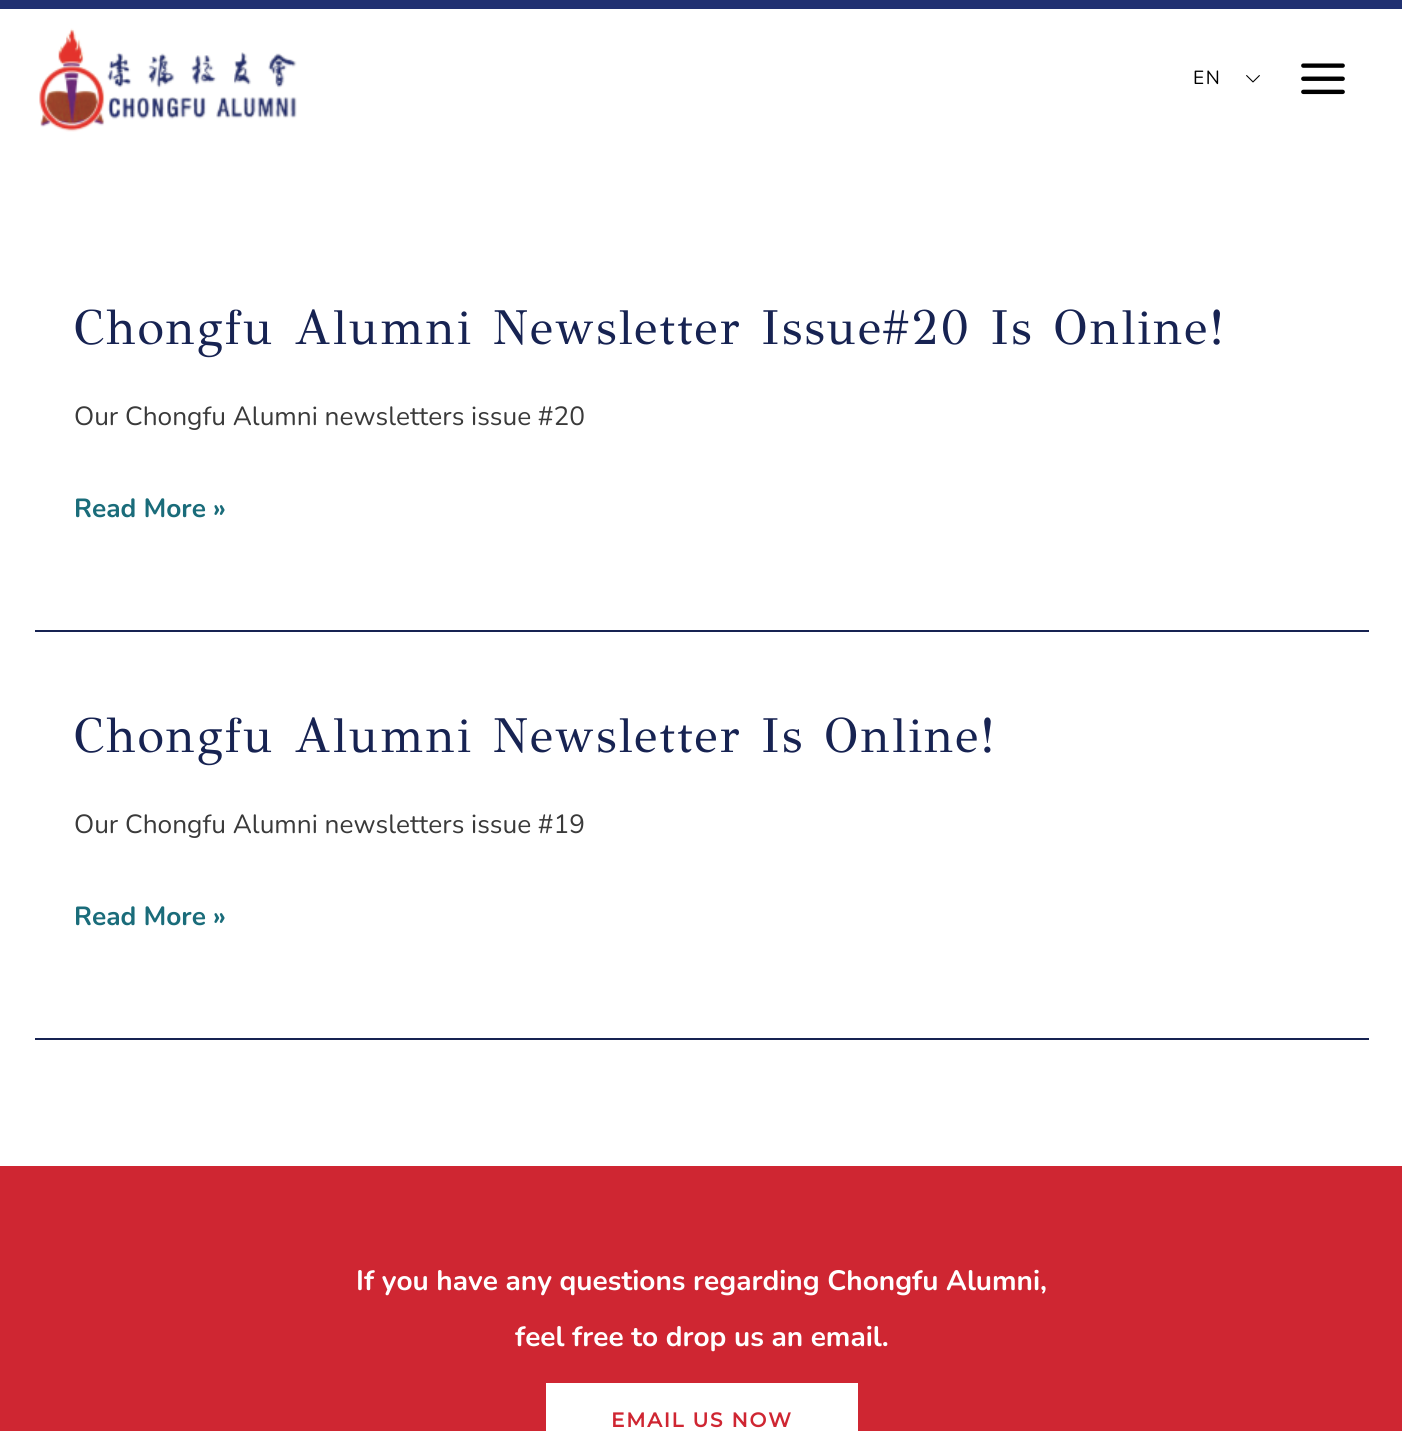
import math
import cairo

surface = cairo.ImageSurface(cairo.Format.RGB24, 1402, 1431)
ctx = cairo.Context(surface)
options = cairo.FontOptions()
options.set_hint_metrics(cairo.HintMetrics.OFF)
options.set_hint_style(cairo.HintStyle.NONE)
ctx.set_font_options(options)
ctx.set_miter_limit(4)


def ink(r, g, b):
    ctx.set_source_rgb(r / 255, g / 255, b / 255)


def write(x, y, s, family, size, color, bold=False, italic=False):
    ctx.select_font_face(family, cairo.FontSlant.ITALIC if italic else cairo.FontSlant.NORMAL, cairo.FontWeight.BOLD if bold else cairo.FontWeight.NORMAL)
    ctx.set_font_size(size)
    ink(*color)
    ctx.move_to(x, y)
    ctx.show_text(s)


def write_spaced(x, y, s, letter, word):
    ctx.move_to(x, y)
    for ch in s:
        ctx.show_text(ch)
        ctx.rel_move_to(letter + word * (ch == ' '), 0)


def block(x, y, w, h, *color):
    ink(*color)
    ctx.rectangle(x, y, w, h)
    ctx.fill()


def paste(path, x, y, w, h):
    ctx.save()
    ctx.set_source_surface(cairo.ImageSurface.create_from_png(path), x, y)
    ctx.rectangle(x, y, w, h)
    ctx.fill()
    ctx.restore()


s1 = dict(family="Nunito", size=26.25, color=(58, 58, 58))
s2 = dict(family="Nunito", size=26.25, color=(26, 108, 122), bold=True)
s3 = dict(family="Nunito", size=28, color=(255, 255, 255), bold=True)

ink(255, 255, 255)
ctx.paint()
block(0, 0, 1402, 9, 33, 49, 113)
paste("pic1.png", 39, 28, 258, 104)
paste("pic2.png", 1246, 75, 14, 8)
ctx.select_font_face("Nunito")
ctx.set_font_size(19)
ink(0, 0, 0)
write_spaced(1193, 84, "EN", 1.75, 0)
paste("pic3.png", 1301, 63, 44, 32)
block(35, 630, 1334, 2, 23, 35, 82)
ctx.select_font_face("GFS Didot")
ctx.set_font_size(49)
write_spaced(74, 344, "Chongfu Alumni Newsletter Issue#20 Is Online!", 2.1, 0)
write(74, 425, "Our Chongfu Alumni newsletters issue #20", **s1)
write(74, 517, "Read More »", **s2)
block(35, 1038, 1334, 2, 23, 35, 82)
ctx.select_font_face("GFS Didot")
ctx.set_font_size(49)
write_spaced(74, 752, "Chongfu Alumni Newsletter Is Online!", 2.1, 0)
write(74, 833, "Our Chongfu Alumni newsletters issue #19", **s1)
write(74, 925, "Read More »", **s2)
block(0, 1166, 1402, 265, 207, 38, 50)
write(356, 1290, "If you have any questions regarding Chongfu Alumni,", **s3)
write(515, 1346, "feel free to drop us an email.", **s3)
block(546, 1383, 312, 48, 255, 255, 255)
ctx.select_font_face("Montserrat", cairo.FontSlant.NORMAL, cairo.FontWeight.BOLD)
ctx.set_font_size(20.1)
ink(207, 38, 50)
write_spaced(611, 1427, "EMAIL US NOW", 1.75, 0)
surface.write_to_png("screenshot.png")
